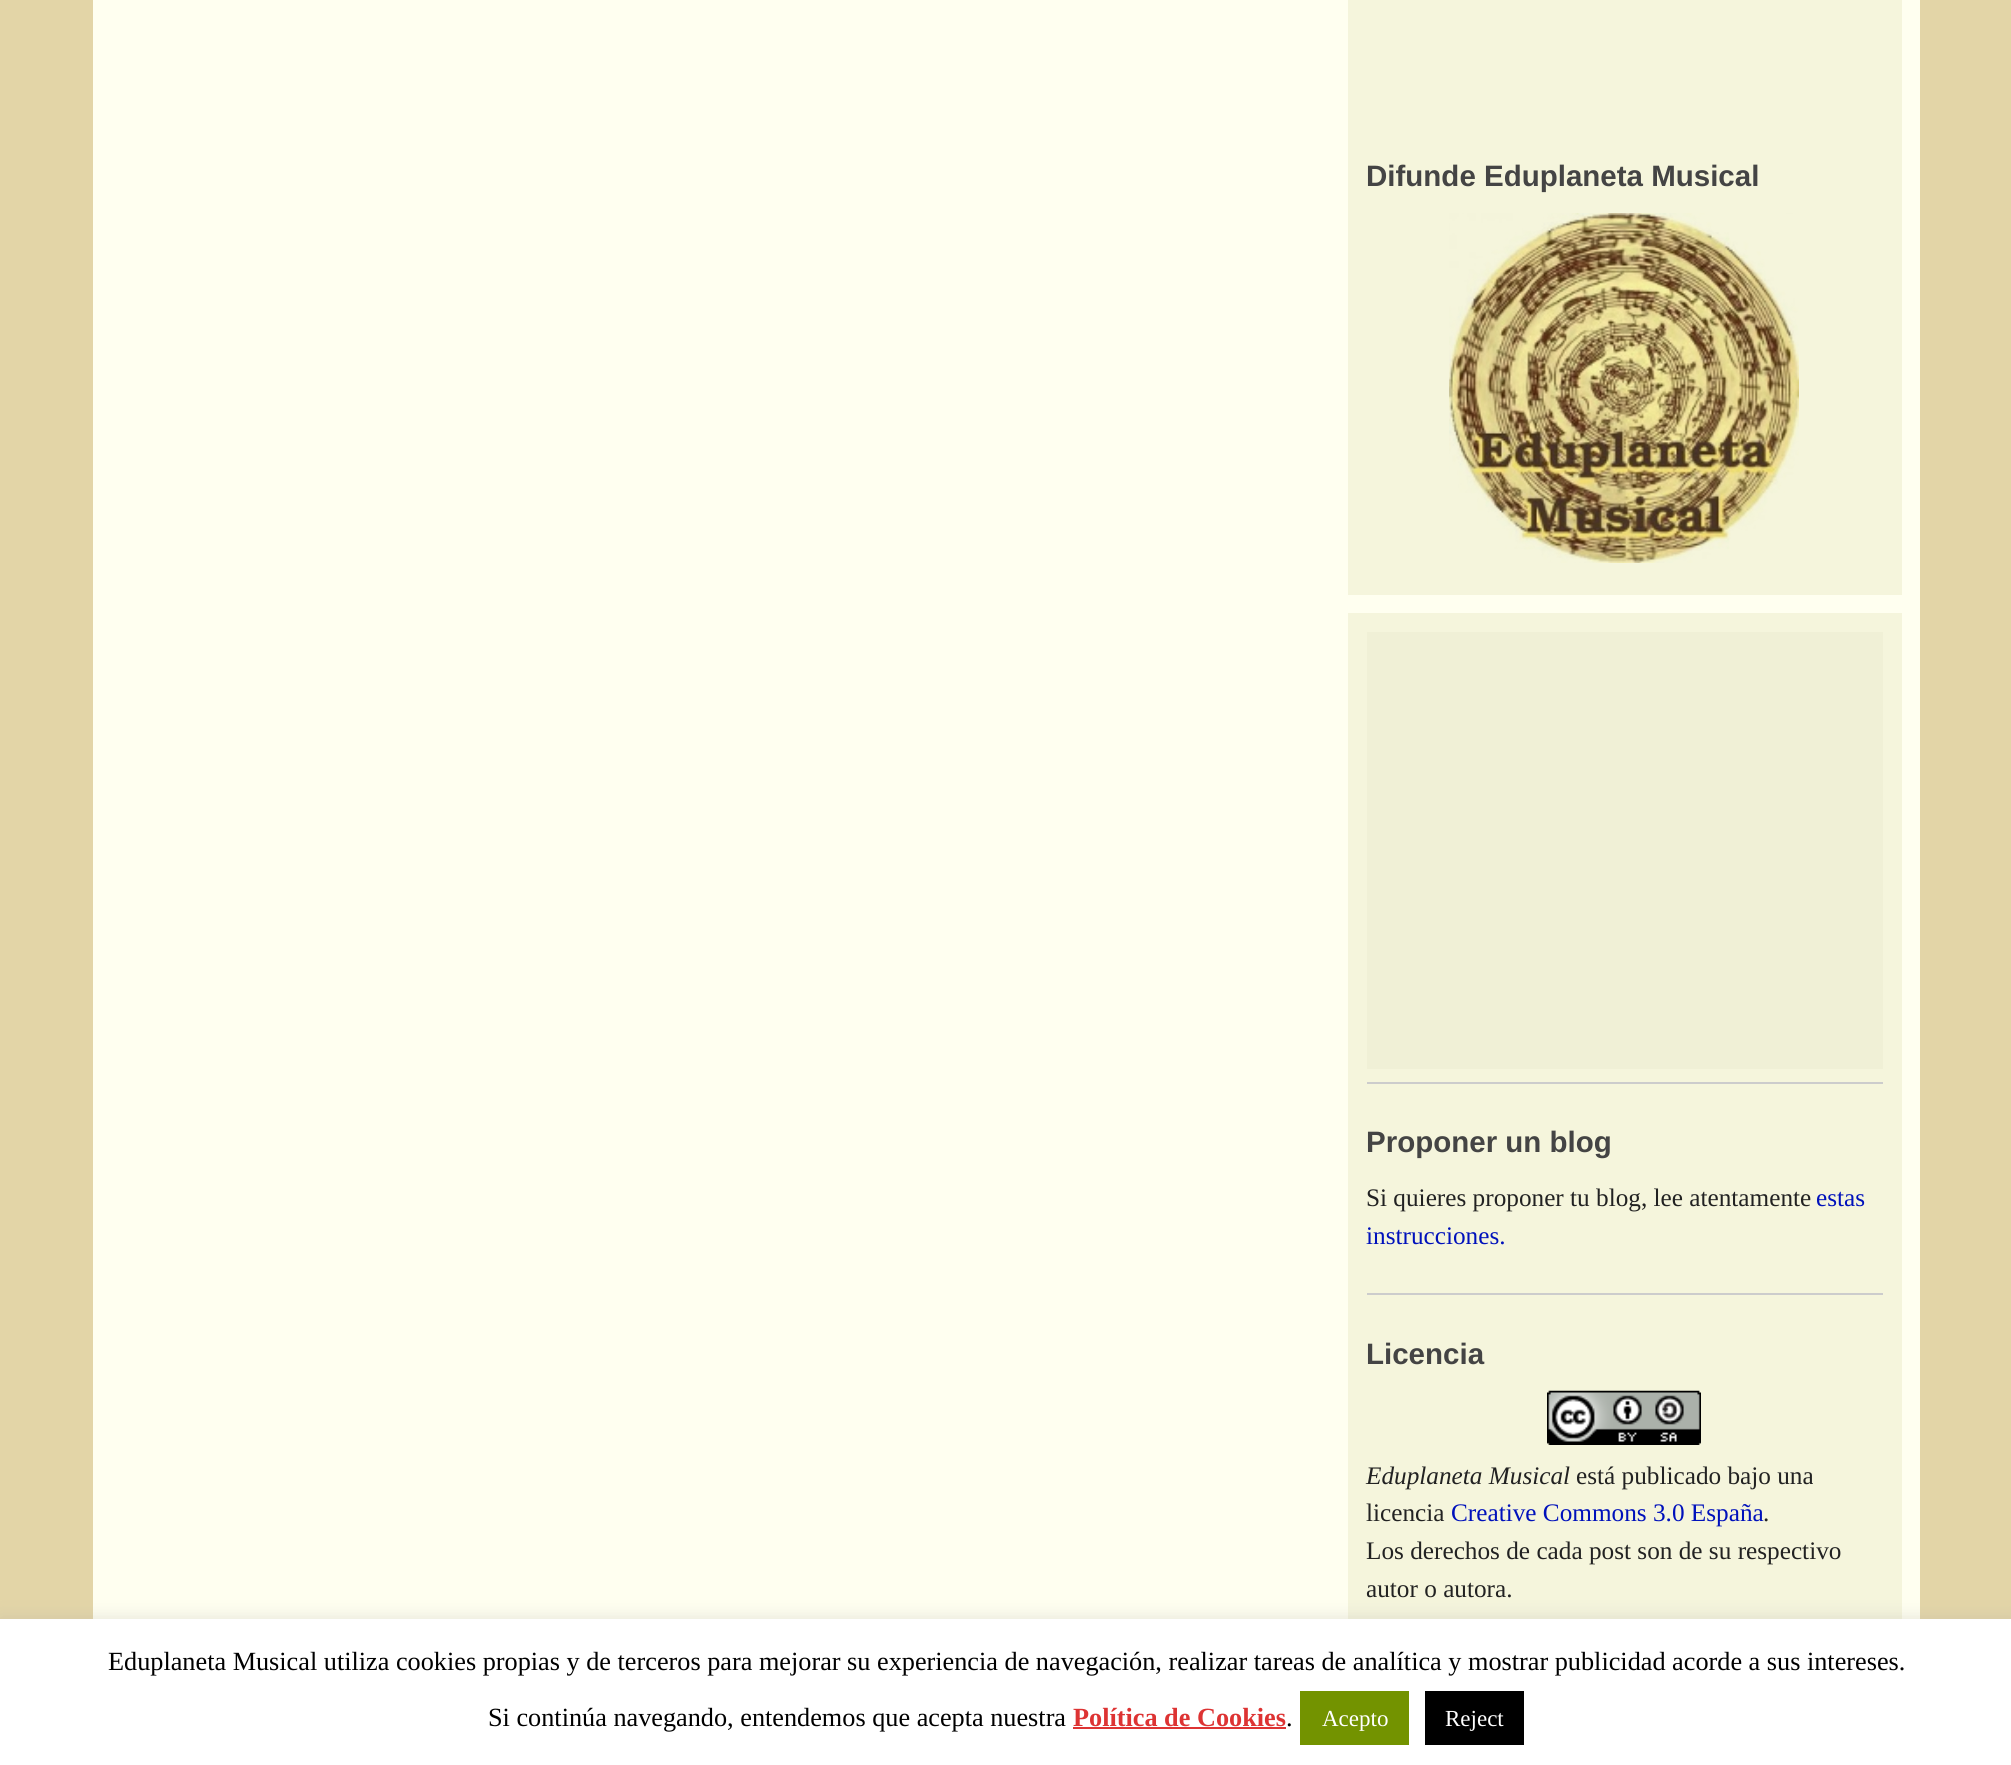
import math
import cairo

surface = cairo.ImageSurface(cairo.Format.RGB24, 2011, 1765)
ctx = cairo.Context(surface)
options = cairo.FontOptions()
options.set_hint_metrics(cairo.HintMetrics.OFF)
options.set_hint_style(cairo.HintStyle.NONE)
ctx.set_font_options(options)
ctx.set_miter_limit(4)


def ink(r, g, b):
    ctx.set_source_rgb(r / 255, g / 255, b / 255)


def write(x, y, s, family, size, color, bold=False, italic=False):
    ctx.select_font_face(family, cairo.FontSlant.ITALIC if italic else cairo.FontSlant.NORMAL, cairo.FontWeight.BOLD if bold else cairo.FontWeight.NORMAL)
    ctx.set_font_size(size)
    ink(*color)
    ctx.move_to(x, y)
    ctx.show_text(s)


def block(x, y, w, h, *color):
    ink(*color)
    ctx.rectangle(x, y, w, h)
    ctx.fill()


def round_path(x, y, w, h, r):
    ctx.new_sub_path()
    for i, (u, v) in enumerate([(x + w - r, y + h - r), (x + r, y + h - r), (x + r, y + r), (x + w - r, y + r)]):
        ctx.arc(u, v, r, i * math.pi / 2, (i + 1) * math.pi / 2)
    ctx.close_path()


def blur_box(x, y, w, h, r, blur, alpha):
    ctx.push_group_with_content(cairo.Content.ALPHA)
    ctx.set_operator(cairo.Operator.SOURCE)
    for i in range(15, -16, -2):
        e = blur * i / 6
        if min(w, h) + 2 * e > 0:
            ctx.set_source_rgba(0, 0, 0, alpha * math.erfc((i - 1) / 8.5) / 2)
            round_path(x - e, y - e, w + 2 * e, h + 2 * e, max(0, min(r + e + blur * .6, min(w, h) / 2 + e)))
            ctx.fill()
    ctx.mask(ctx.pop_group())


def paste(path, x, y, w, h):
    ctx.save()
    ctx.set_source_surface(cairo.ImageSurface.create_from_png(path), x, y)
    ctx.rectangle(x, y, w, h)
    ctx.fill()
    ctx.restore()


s1 = dict(family="Liberation Sans", size=29.5, color=(68, 68, 68), bold=True)
s2 = dict(family="Liberation Serif", size=25.25, color=(34, 34, 34))
s3 = dict(family="Liberation Serif", size=25.25, color=(0, 17, 187))
s4 = dict(family="Liberation Serif", size=25.25, color=(34, 34, 34), italic=True)
s5 = dict(family="Liberation Serif", size=26.25, color=(0, 0, 0))
s6 = dict(family="Liberation Serif", size=26.25, color=(221, 51, 51), bold=True)
s7 = dict(family="Liberation Serif", size=23, color=(255, 255, 255))

ink(227, 213, 167)
ctx.paint()
block(93, 0, 1827, 1619, 255, 255, 240)
block(1348, 0, 554, 595, 245, 245, 220)
write(1366, 186, "Difunde Eduplaneta Musical", **s1)
paste("pic1.png", 1449, 213, 350, 350)
block(1348, 613, 554, 1006, 245, 245, 220)
block(1367, 632, 516, 437, 240, 240, 214)
block(1367, 1082, 516, 2, 204, 204, 204)
write(1366, 1152, "Proponer un blog", **s1)
write(1366, 1206, "Si quieres proponer tu blog, lee atentamente", **s2)
write(1816, 1206, "estas", **s3)
write(1366, 1244, "instrucciones.", **s3)
block(1367, 1293, 516, 2, 204, 204, 204)
write(1366, 1364, "Licencia", **s1)
paste("pic2.png", 1547, 1390, 154, 55)
write(1366, 1484, "Eduplaneta Musical", **s4)
write(1576, 1484, "está publicado bajo una", **s2)
write(1366, 1521, "licencia", **s2)
write(1451, 1521, "Creative Commons 3.0 España", **s3)
write(1763, 1521, ".", **s2)
write(1366, 1559, "Los derechos de cada post son de su respectivo", **s2)
write(1366, 1597, "autor o autora.", **s2)
ink(172, 171, 171)
blur_box(0, 1617, 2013, 147, 0, 9, 0.3)
block(0, 1619, 2011, 146, 255, 255, 255)
write(108, 1670, "Eduplaneta Musical utiliza cookies propias y de terceros para mejorar su experiencia de navegación, realizar tareas de analítica y mostrar publicidad acorde a sus intereses.", **s5)
write(488, 1726, "Si continúa navegando, entendemos que acepta nuestra", **s5)
write(1073, 1726, "Política de Cookies", **s6)
block(1073, 1727, 213, 2, 221, 51, 51)
write(1286, 1726, ".", **s5)
block(1300, 1691, 109, 54, 115, 147, 0)
write(1322, 1726, "Acepto", **s7)
block(1425, 1691, 99, 54, 0, 0, 0)
write(1445, 1726, "Reject", **s7)
surface.write_to_png("screenshot.png")
